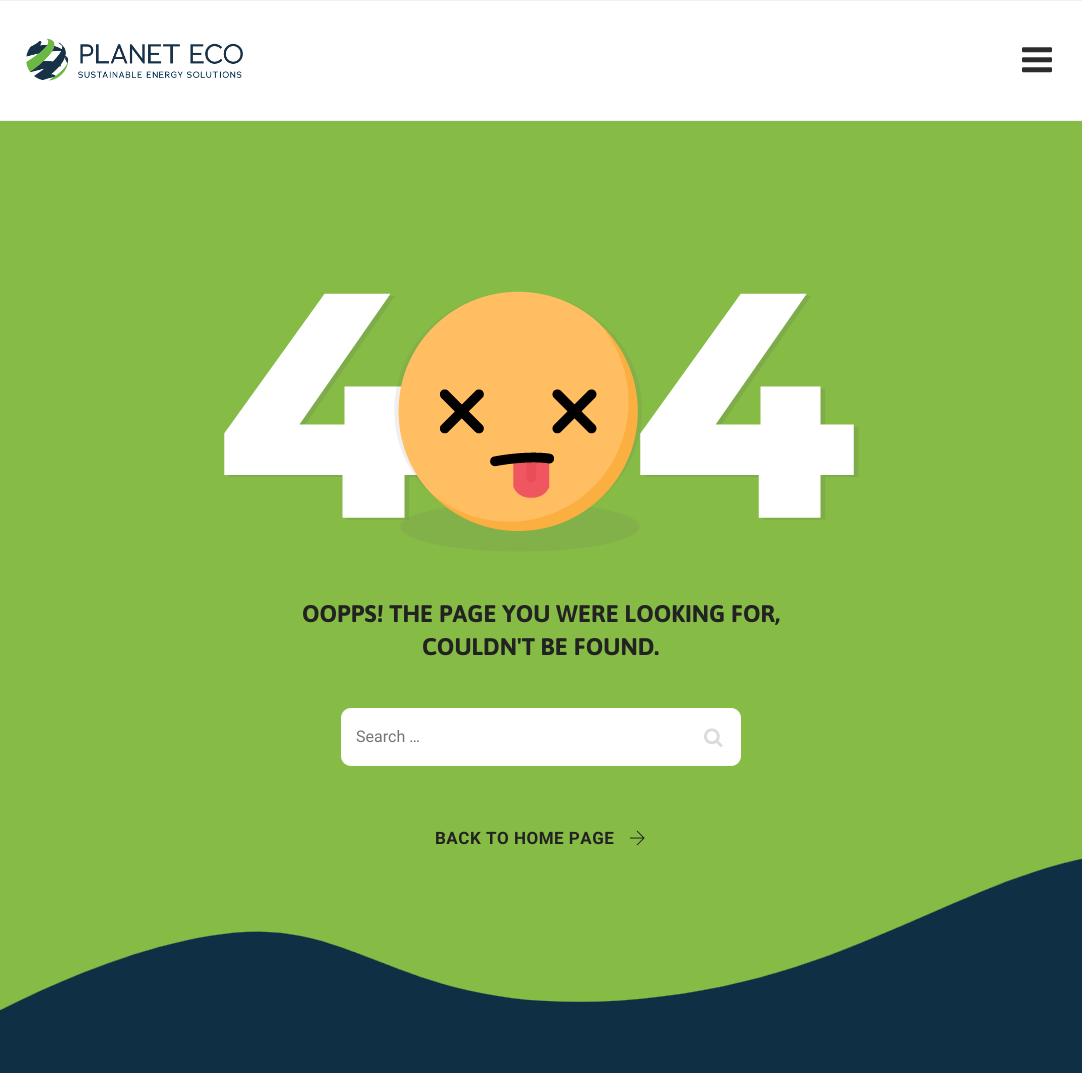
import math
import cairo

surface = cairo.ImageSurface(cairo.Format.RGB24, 1082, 1073)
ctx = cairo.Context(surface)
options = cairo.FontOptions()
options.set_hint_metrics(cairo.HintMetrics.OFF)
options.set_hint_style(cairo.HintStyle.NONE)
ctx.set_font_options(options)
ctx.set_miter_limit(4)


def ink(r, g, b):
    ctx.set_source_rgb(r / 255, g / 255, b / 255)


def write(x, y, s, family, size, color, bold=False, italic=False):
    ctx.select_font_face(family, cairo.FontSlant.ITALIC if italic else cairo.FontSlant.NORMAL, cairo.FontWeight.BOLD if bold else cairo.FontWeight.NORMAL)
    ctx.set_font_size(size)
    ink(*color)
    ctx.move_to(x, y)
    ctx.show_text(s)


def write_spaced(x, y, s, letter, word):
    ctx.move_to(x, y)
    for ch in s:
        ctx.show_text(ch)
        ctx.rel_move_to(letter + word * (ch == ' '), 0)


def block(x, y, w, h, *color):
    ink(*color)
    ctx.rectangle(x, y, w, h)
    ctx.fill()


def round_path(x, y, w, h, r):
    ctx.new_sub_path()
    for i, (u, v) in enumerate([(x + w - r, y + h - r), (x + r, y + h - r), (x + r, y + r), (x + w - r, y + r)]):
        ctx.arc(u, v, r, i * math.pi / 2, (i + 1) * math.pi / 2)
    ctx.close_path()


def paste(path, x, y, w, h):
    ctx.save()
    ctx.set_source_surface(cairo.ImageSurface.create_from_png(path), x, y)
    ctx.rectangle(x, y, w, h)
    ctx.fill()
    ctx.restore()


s1 = dict(family="Asap", size=24, color=(34, 34, 34), bold=True)
s2 = dict(family="Roboto", size=16, color=(117, 117, 117))

ink(255, 255, 255)
ctx.paint()
block(0, 120, 1082, 1, 241, 241, 241)
block(0, 0, 1082, 1, 241, 241, 241)
paste("pic1.png", 26, 38, 217, 43)
paste("pic2.png", 1022, 47, 30, 26)
block(0, 121, 1082, 889, 134, 187, 70)
paste("pic3.png", 224, 291, 635, 261)
write(302, 622, "OOPPS! THE PAGE YOU WERE LOOKING FOR,", **s1)
write(422, 655, "COULDN'T BE FOUND.", **s1)
ink(255, 255, 255)
round_path(341, 708, 400, 58, 10)
ctx.fill()
write(356, 742, "Search …", **s2)
paste("pic4.png", 704, 728, 19, 19)
ctx.select_font_face("Roboto", cairo.FontSlant.NORMAL, cairo.FontWeight.BOLD)
ctx.set_font_size(17)
ink(34, 34, 34)
write_spaced(435, 844, "BACK TO HOME PAGE", 0.5, 0)
paste("pic5.png", 630, 830, 15, 16)
paste("pic6.png", 0, 858, 1082, 153)
block(0, 1011, 1082, 62, 14, 47, 68)
surface.write_to_png("screenshot.png")
